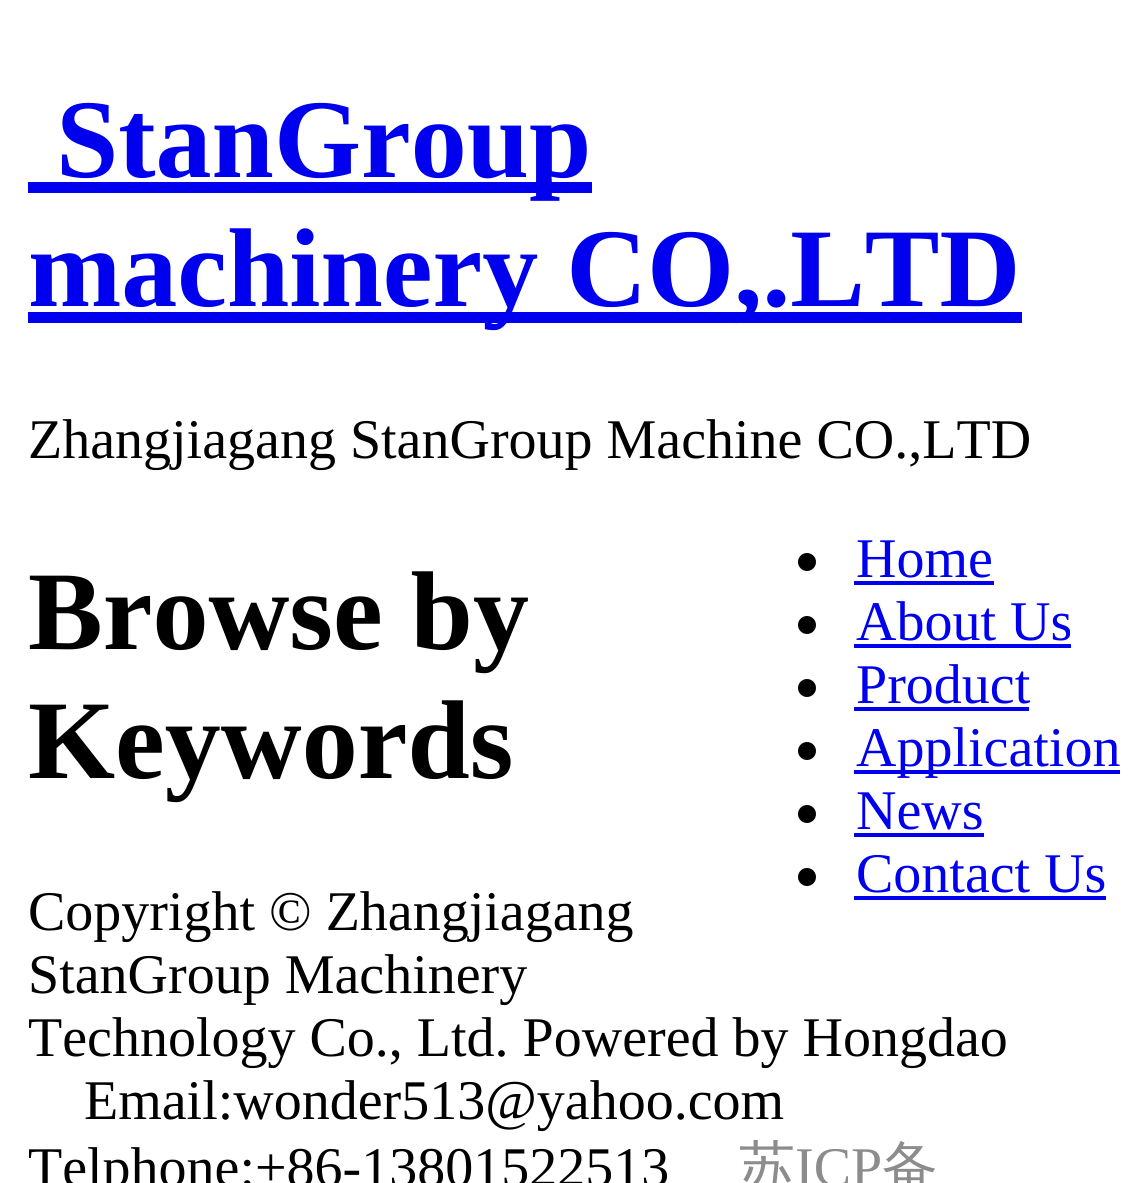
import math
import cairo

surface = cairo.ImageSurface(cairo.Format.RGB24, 1146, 1183)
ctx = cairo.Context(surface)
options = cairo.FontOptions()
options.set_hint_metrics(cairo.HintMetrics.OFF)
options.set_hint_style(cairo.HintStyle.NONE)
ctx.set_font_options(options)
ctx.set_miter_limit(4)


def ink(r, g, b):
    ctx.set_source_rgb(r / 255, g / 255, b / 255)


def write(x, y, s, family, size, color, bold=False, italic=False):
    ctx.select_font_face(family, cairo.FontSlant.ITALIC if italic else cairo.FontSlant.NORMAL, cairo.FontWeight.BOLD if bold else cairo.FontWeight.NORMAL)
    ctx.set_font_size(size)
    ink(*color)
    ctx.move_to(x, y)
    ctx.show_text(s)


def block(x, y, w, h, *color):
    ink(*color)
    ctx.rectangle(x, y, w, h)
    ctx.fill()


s1 = dict(family="Liberation Serif", size=112, color=(0, 0, 238), bold=True)
s2 = dict(family="Liberation Serif", size=56, color=(0, 0, 0))
s3 = dict(family="Liberation Serif", size=56, color=(0, 0, 238))
s4 = dict(family="Liberation Serif", size=112, color=(0, 0, 0), bold=True)
s5 = dict(family="WenQuanYi Zen Hei Medium", size=56, color=(140, 140, 140))
s6 = dict(family="Liberation Serif", size=56, color=(140, 140, 140))

ink(255, 255, 255)
ctx.paint()
block(28, 182, 564, 11, 0, 0, 238)
write(56, 177, "StanGroup", **s1)
block(28, 312, 994, 11, 0, 0, 238)
write(28, 306, "machinery CO,.LTD", **s1)
write(28, 458, "Zhangjiagang StanGroup Machine CO.,LTD", **s2)
ctx.new_path()
ctx.arc(807, 562, 9, 0, 2 * math.pi)
ctx.fill()
write(856, 577, "Home", **s3)
block(854, 581, 140, 4, 0, 0, 238)
ink(0, 0, 0)
ctx.new_path()
ctx.arc(807, 625, 9, 0, 2 * math.pi)
ctx.fill()
write(856, 640, "About Us", **s3)
block(854, 644, 217, 4, 0, 0, 238)
ink(0, 0, 0)
ctx.new_path()
ctx.arc(807, 688, 9, 0, 2 * math.pi)
ctx.fill()
write(856, 703, "Product", **s3)
block(854, 707, 175, 4, 0, 0, 238)
ink(0, 0, 0)
ctx.new_path()
ctx.arc(807, 751, 9, 0, 2 * math.pi)
ctx.fill()
block(854, 770, 266, 4, 0, 0, 238)
write(856, 766, "Application", **s3)
ink(0, 0, 0)
ctx.new_path()
ctx.arc(807, 814, 9, 0, 2 * math.pi)
ctx.fill()
write(856, 829, "News", **s3)
block(854, 833, 130, 4, 0, 0, 238)
ink(0, 0, 0)
ctx.new_path()
ctx.arc(807, 877, 9, 0, 2 * math.pi)
ctx.fill()
write(856, 892, "Contact Us", **s3)
block(854, 896, 252, 4, 0, 0, 238)
write(28, 649, "Browse by", **s4)
write(28, 778, "Keywords", **s4)
write(28, 930, "Copyright © Zhangjiagang", **s2)
write(28, 993, "StanGroup Machinery", **s2)
write(28, 1056, "Technology Co., Ltd. Powered by Hongdao", **s2)
write(84, 1119, "Email:wonder513@yahoo.com", **s2)
write(28, 1186, "Telphone:+86-13801522513", **s2)
write(739, 1186, "苏", **s5)
write(795, 1186, "ICP", **s6)
write(882, 1186, "备", **s5)
surface.write_to_png("screenshot.png")
